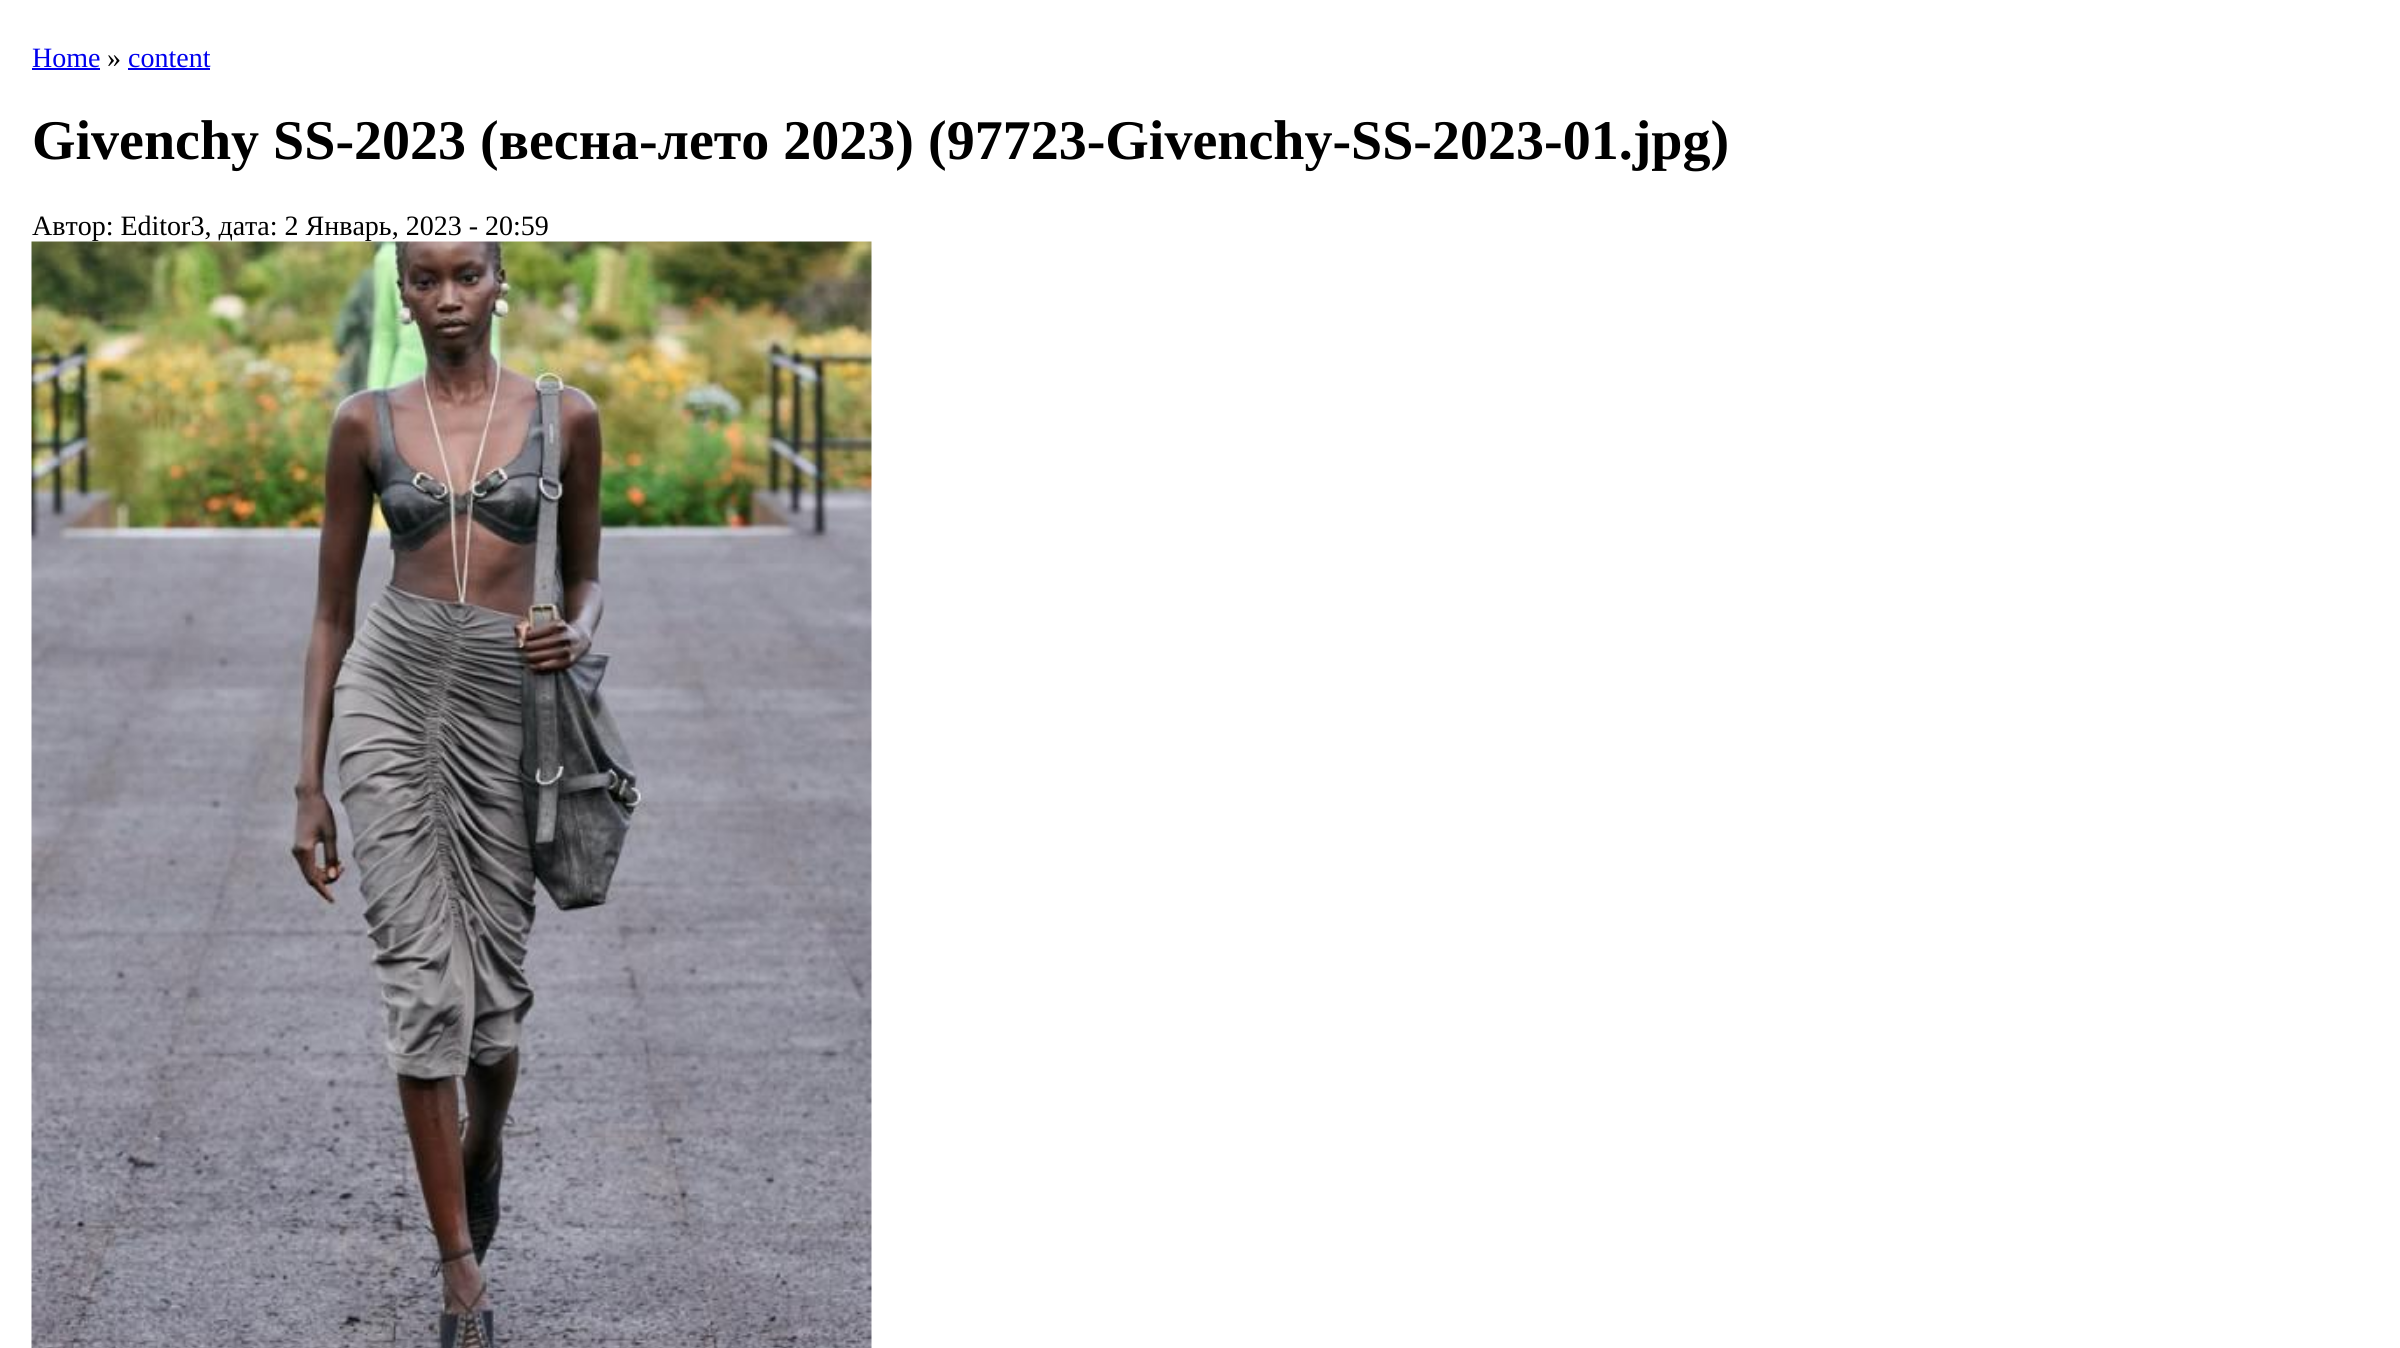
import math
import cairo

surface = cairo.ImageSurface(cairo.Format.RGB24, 2400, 1348)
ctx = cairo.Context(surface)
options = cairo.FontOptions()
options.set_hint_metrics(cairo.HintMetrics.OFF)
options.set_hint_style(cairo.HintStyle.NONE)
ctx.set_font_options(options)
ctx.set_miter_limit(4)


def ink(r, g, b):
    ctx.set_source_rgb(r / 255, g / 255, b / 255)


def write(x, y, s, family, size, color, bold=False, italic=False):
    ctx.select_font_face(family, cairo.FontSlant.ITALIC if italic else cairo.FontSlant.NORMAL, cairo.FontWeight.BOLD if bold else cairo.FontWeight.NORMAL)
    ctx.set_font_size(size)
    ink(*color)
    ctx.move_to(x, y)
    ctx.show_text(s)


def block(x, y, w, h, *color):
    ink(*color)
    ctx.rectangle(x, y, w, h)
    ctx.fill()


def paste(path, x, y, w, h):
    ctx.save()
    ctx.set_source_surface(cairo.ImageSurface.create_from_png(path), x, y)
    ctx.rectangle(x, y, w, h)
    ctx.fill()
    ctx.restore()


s1 = dict(family="Liberation Serif", size=28, color=(0, 0, 238))
s2 = dict(family="Liberation Serif", size=28, color=(0, 0, 0))
s3 = dict(family="Liberation Serif", size=56, color=(0, 0, 0), bold=True)

ink(255, 255, 255)
ctx.paint()
write(32, 67, "Home", **s1)
block(32, 68, 68, 2, 0, 0, 238)
write(107, 67, "»", **s2)
write(128, 67, "content", **s1)
block(128, 68, 82, 2, 0, 0, 238)
write(32, 159, "Givenchy SS-2023 (весна-лето 2023) (97723-Givenchy-SS-2023-01.jpg)", **s3)
write(32, 235, "Автор: Editor3, дата: 2 Январь, 2023 - 20:59", **s2)
paste("pic1.png", 31, 241, 841, 1107)
surface.write_to_png("screenshot.png")
